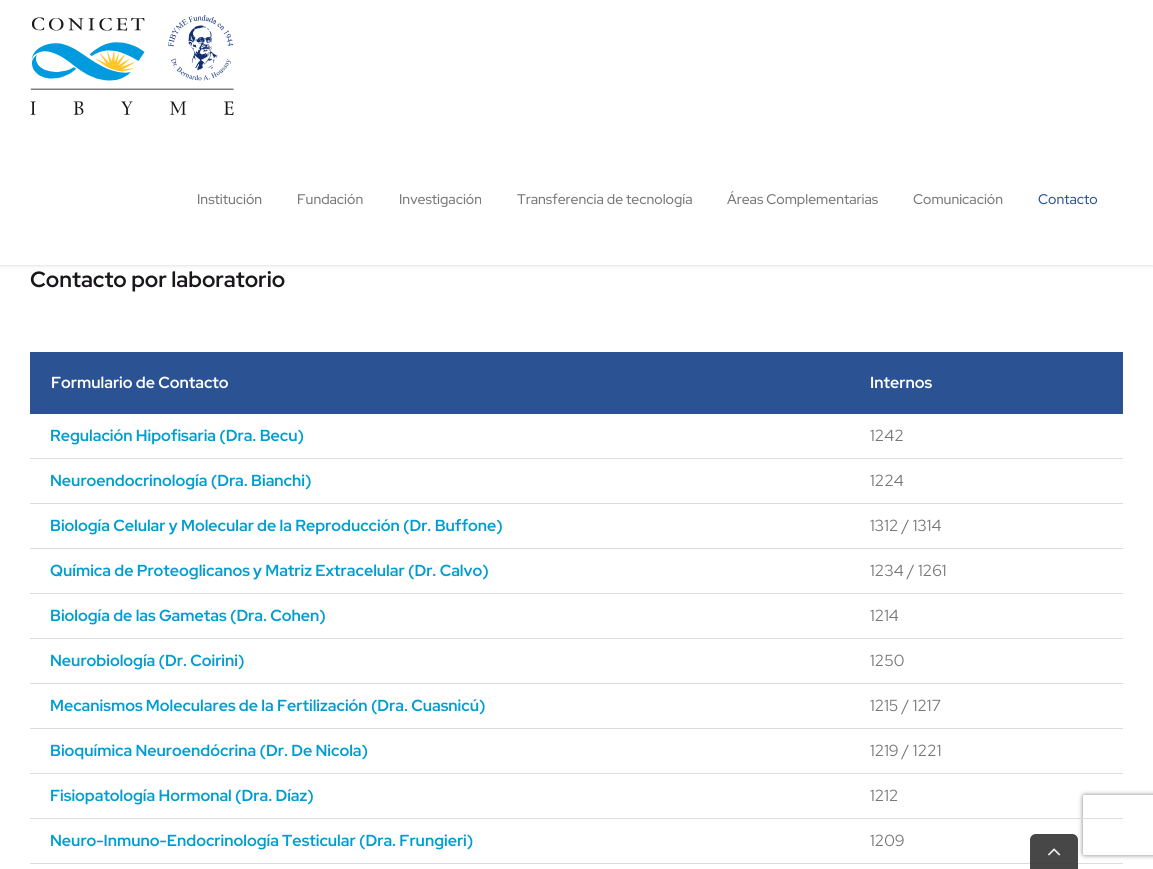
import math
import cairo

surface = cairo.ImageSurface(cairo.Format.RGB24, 1153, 869)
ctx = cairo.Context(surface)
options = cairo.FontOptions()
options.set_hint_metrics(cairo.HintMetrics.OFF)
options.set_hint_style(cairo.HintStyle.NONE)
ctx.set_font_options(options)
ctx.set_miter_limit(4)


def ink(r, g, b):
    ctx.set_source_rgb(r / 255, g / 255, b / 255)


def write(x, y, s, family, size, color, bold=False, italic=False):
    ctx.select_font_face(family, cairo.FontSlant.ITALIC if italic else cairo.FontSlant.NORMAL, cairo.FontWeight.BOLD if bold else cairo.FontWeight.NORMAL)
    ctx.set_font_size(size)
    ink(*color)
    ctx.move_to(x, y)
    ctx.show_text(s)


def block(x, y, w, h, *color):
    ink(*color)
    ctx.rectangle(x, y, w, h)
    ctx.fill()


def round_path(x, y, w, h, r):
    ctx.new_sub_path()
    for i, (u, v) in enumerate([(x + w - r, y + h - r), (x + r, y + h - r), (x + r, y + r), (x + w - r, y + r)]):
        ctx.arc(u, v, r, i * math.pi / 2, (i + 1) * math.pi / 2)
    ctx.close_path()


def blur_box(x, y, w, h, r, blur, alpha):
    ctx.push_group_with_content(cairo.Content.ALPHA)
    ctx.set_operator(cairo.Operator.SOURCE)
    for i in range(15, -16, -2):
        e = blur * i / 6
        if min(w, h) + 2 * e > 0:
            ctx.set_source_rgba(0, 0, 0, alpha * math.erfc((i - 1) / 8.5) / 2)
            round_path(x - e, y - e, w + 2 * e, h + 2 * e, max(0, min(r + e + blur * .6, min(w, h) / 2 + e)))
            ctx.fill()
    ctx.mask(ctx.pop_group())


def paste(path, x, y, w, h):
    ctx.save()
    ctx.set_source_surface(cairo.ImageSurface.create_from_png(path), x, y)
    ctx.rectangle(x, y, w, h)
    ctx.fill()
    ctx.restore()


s1 = dict(family="Red Hat Display Medium", size=14, color=(118, 119, 122))
s2 = dict(family="Red Hat Display Medium", size=14, color=(43, 83, 148))
s3 = dict(family="Red Hat Display", size=22, color=(26, 23, 27), bold=True)
s4 = dict(family="Red Hat Display", size=16, color=(255, 255, 255), bold=True)
s5 = dict(family="Red Hat Display", size=16, color=(0, 157, 209), bold=True)
s6 = dict(family="Red Hat Display", size=16, color=(118, 119, 122))

ink(255, 255, 255)
ctx.paint()
ink(0, 0, 0)
blur_box(0, 1, 1153, 265, 0, 1.5, 0.12)
block(0, 0, 1153, 265, 255, 255, 255)
paste("pic1.png", 30, 15, 204, 100)
write(197, 204, "Institución", **s1)
write(297, 204, "Fundación", **s1)
write(399, 204, "Investigación", **s1)
write(517, 204, "Transferencia de tecnología", **s1)
write(727, 204, "Áreas Complementarias", **s1)
write(913, 204, "Comunicación", **s1)
write(1038, 204, "Contacto", **s2)
write(30, 287, "Contacto por laboratorio", **s3)
block(30, 353, 1092, 60, 43, 83, 148)
block(30, 352, 1093, 1, 43, 83, 148)
block(1122, 352, 1, 62, 43, 83, 148)
block(30, 413, 1093, 1, 43, 83, 148)
write(51, 388, "Formulario de Contacto", **s4)
write(870, 388, "Internos", **s4)
write(50, 441, "Regulación Hipofisaria (Dra. Becu)", **s5)
block(30, 458, 1093, 1, 220, 220, 220)
write(870, 441, "1242", **s6)
write(50, 486, "Neuroendocrinología (Dra. Bianchi)", **s5)
block(30, 503, 1093, 1, 220, 220, 220)
write(870, 486, "1224", **s6)
write(50, 531, "Biología Celular y Molecular de la Reproducción (Dr. Buffone)", **s5)
block(30, 548, 1093, 1, 220, 220, 220)
write(870, 531, "1312 / 1314", **s6)
write(50, 576, "Química de Proteoglicanos y Matriz Extracelular (Dr. Calvo)", **s5)
block(30, 593, 1093, 1, 220, 220, 220)
write(870, 576, "1234 / 1261", **s6)
write(50, 621, "Biología de las Gametas (Dra. Cohen)", **s5)
block(30, 638, 1093, 1, 220, 220, 220)
write(870, 621, "1214", **s6)
write(50, 666, "Neurobiología (Dr. Coirini)", **s5)
block(30, 683, 1093, 1, 220, 220, 220)
write(870, 666, "1250", **s6)
write(50, 711, "Mecanismos Moleculares de la Fertilización (Dra. Cuasnicú)", **s5)
block(30, 728, 1093, 1, 220, 220, 220)
write(870, 711, "1215 / 1217", **s6)
write(50, 756, "Bioquímica Neuroendócrina (Dr. De Nicola)", **s5)
block(30, 773, 1093, 1, 220, 220, 220)
write(870, 756, "1219 / 1221", **s6)
write(50, 801, "Fisiopatología Hormonal (Dra. Díaz)", **s5)
ctx.save()
ctx.set_fill_rule(cairo.FillRule.EVEN_ODD)
ctx.new_path()
ctx.move_to(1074, 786)
ctx.line_to(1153, 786)
ctx.line_to(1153, 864)
ctx.line_to(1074, 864)
ctx.close_path()
ctx.move_to(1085, 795)
ctx.line_to(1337, 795)
ctx.curve_to(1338, 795, 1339, 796, 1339, 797)
ctx.line_to(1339, 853)
ctx.curve_to(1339, 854, 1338, 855, 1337, 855)
ctx.line_to(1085, 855)
ctx.curve_to(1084, 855, 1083, 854, 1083, 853)
ctx.line_to(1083, 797)
ctx.curve_to(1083, 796, 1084, 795, 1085, 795)
ctx.close_path()
ctx.clip()
ink(128, 128, 128)
blur_box(1083, 795, 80, 60, 2, 2.5, 1)
ctx.restore()
block(30, 818, 1093, 1, 220, 220, 220)
write(870, 801, "1212", **s6)
write(50, 846, "Neuro-Inmuno-Endocrinología Testicular (Dra. Frungieri)", **s5)
block(30, 863, 1093, 1, 220, 220, 220)
write(870, 846, "1209", **s6)
ctx.set_source_rgba(0.2, 0.2, 0.2, 0.9)
ctx.new_path()
ctx.move_to(1036, 834)
ctx.line_to(1072, 834)
ctx.curve_to(1075.5, 834, 1078, 836.5, 1078, 840)
ctx.line_to(1078, 869)
ctx.line_to(1030, 869)
ctx.line_to(1030, 840)
ctx.curve_to(1030, 836.5, 1032.5, 834, 1036, 834)
ctx.close_path()
ctx.fill()
paste("pic2.png", 1048, 848, 13, 8)
surface.write_to_png("screenshot.png")
